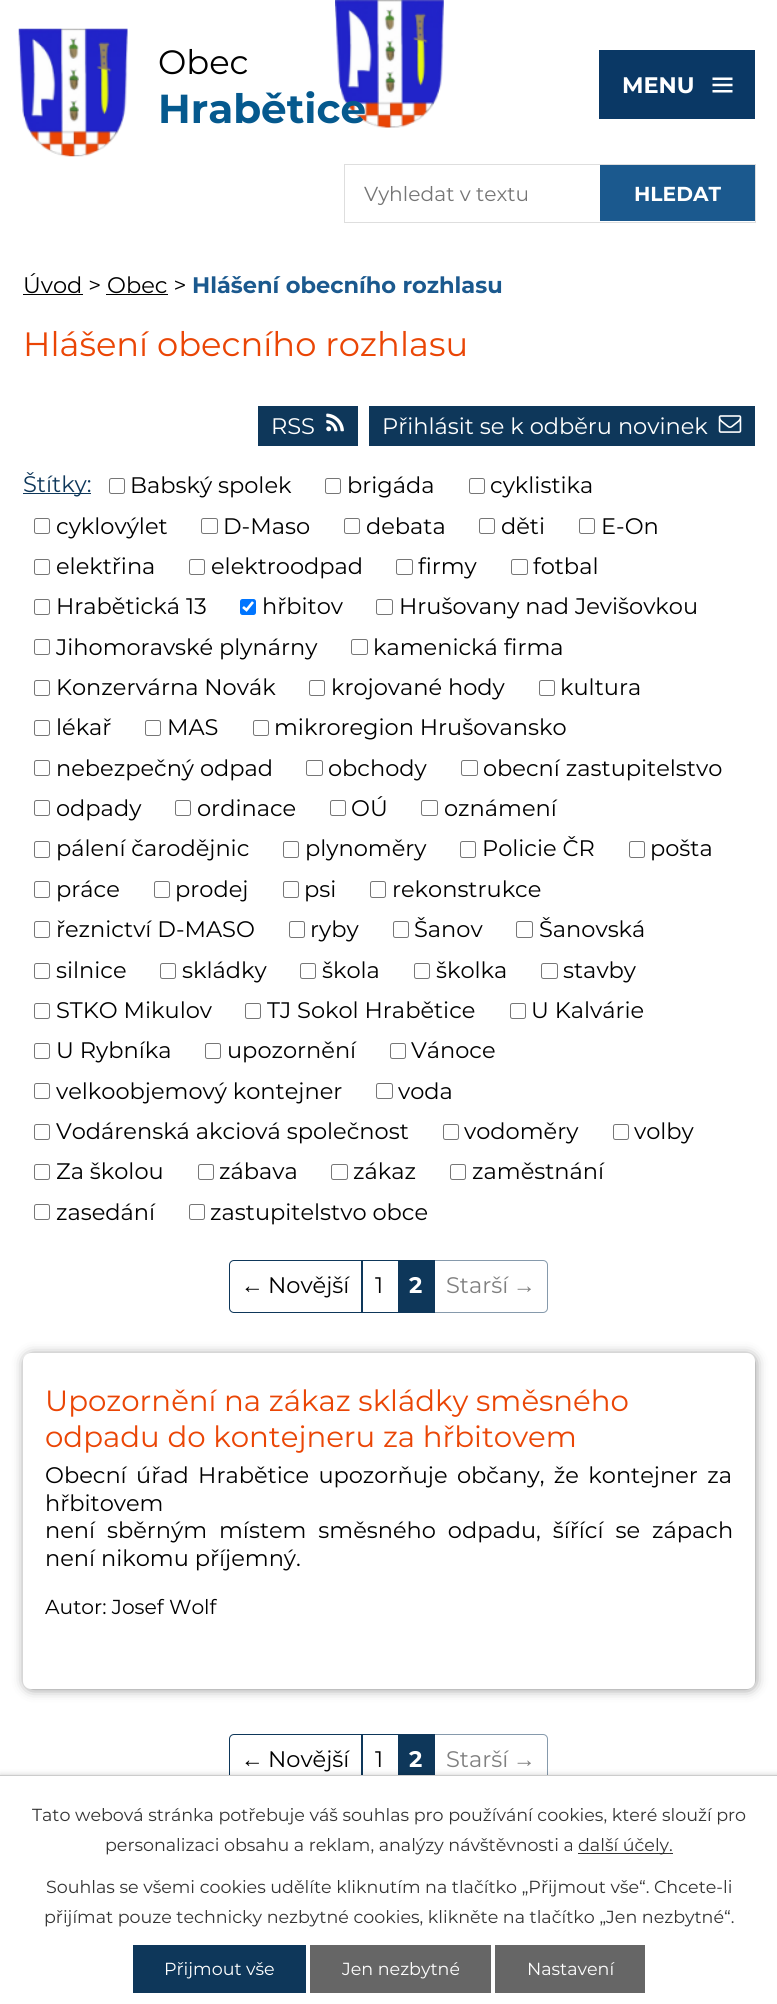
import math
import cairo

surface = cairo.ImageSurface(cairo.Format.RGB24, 777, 2004)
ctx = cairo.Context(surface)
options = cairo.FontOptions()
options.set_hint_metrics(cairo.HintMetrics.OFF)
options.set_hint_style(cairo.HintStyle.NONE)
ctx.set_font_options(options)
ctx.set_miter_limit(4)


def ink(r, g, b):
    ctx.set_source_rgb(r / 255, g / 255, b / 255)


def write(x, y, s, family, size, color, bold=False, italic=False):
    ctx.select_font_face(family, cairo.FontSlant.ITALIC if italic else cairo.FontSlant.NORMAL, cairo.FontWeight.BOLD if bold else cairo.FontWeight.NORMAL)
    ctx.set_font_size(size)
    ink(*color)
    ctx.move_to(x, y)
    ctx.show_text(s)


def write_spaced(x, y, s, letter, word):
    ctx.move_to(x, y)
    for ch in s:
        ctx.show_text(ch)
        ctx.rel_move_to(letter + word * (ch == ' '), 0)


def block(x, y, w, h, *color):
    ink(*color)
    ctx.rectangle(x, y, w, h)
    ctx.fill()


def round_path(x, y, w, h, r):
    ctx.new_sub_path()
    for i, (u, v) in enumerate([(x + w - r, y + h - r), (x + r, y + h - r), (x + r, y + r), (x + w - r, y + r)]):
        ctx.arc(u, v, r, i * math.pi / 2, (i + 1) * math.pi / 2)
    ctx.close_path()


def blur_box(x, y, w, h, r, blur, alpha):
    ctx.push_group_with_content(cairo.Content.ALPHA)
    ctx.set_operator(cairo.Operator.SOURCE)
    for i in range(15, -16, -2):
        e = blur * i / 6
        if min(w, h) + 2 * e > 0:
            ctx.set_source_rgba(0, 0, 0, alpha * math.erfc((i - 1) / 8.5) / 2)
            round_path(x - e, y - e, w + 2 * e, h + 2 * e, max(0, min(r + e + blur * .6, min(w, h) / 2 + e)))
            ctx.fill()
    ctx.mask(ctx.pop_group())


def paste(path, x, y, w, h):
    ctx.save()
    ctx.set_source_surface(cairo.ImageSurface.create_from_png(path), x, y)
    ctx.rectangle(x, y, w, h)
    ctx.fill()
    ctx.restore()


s1 = dict(family="Montserrat", size=33.75, color=(0, 0, 0))
s2 = dict(family="Montserrat", size=40.5, color=(5, 89, 142), bold=True)
s3 = dict(family="Montserrat", size=20.25, color=(117, 117, 117))
s4 = dict(family="Montserrat", size=20.25, color=(255, 255, 255), bold=True)
s5 = dict(family="Montserrat", size=22.5, color=(255, 255, 255), bold=True)
s6 = dict(family="Montserrat", size=22.5, color=(0, 0, 0))
s7 = dict(family="Montserrat", size=22.5, color=(27, 89, 142), bold=True)
s8 = dict(family="Montserrat", size=33.75, color=(234, 69, 5))
s9 = dict(family="Montserrat", size=22.5, color=(255, 255, 255))
s10 = dict(family="Montserrat", size=22.5, color=(14, 55, 90))
s11 = dict(family="Liberation Sans", size=22.5, color=(0, 0, 0))
s12 = dict(family="Montserrat", size=22.5, color=(128, 128, 128))
s13 = dict(family="Liberation Sans", size=22.5, color=(128, 128, 128))
s14 = dict(family="Montserrat", size=29.25, color=(234, 69, 5))
s15 = dict(family="Montserrat", size=20.25, color=(0, 0, 0))
s16 = dict(family="Montserrat", size=17.5, color=(51, 51, 51))
s17 = dict(family="Montserrat", size=17.5, color=(255, 255, 255))

ink(255, 255, 255)
ctx.paint()
paste("pic1.png", 335, 0, 109, 128)
paste("pic2.png", 18, 28, 110, 129)
write(158, 74, "Obec", **s1)
write(158, 123, "Hrabětice", **s2)
ctx.rectangle(344.5, 164.5, 411, 58)
ink(222, 222, 222)
ctx.set_line_width(1)
ctx.stroke()
write(364, 201, "Vyhledat v textu", **s3)
block(600, 165, 155, 56, 27, 89, 142)
write(634, 201, "HLEDAT", **s4)
block(599, 50, 156, 69, 10, 56, 101)
write(622, 93, "MENU", **s5)
paste("pic3.png", 712, 77, 21, 16)
write(23, 293, "Úvod > Obec >", **s6)
block(23, 294, 60, 1, 0, 0, 0)
write(192, 293, "Hlášení obecního rozhlasu", **s7)
block(106, 294, 62, 1, 0, 0, 0)
write(23, 356, "Hlášení obecního rozhlasu", **s8)
block(258, 406, 100, 40, 14, 55, 90)
write(271, 434, "RSS", **s9)
paste("pic4.png", 326, 413, 18, 19)
block(369, 406, 386, 40, 14, 55, 90)
write(382, 434, "Přihlásit se k odběru novinek", **s9)
paste("pic5.png", 718, 415, 24, 18)
block(23, 493, 68, 1, 14, 55, 90)
write(23, 492, "Štítky:", **s10)
round_path(109.5, 478.5, 15, 15, 2)
ink(118, 118, 118)
ctx.stroke()
write(130, 493, "Babský spolek", **s6)
round_path(325.5, 478.5, 15, 15, 2)
ink(118, 118, 118)
ctx.stroke()
write(347, 493, "brigáda", **s6)
round_path(469.5, 478.5, 15, 15, 2)
ink(118, 118, 118)
ctx.stroke()
write(490, 493, "cyklistika", **s6)
round_path(34.5, 518.5, 15, 15, 2)
ink(118, 118, 118)
ctx.stroke()
write(56, 534, "cyklovýlet", **s6)
round_path(201.5, 518.5, 16, 15, 2)
ink(118, 118, 118)
ctx.stroke()
write(223, 534, "D-Maso", **s6)
round_path(344.5, 518.5, 15, 15, 2)
ink(118, 118, 118)
ctx.stroke()
write(366, 534, "debata", **s6)
round_path(479.5, 518.5, 15, 15, 2)
ink(118, 118, 118)
ctx.stroke()
write(501, 534, "děti", **s6)
round_path(579.5, 518.5, 15, 15, 2)
ink(118, 118, 118)
ctx.stroke()
write(601, 534, "E-On", **s6)
round_path(34.5, 559.5, 15, 15, 2)
ink(118, 118, 118)
ctx.stroke()
write(56, 574, "elektřina", **s6)
round_path(189.5, 559.5, 15, 15, 2)
ink(118, 118, 118)
ctx.stroke()
write(211, 574, "elektroodpad", **s6)
round_path(396.5, 559.5, 16, 15, 2)
ink(118, 118, 118)
ctx.stroke()
write(418, 574, "firmy", **s6)
round_path(511.5, 559.5, 16, 15, 2)
ink(118, 118, 118)
ctx.stroke()
write(533, 574, "fotbal", **s6)
round_path(34.5, 599.5, 15, 15, 2)
ink(118, 118, 118)
ctx.stroke()
write(56, 614, "Hrabětická 13", **s6)
ink(0, 117, 255)
round_path(240, 599, 16, 16, 2.5)
ctx.fill()
ctx.new_path()
ctx.move_to(243, 607)
ctx.line_to(246.5, 610)
ctx.line_to(253, 602)
ink(255, 255, 255)
ctx.set_line_width(2.6)
ctx.stroke()
write(262, 614, "hřbitov", **s6)
round_path(376.5, 599.5, 16, 15, 2)
ink(118, 118, 118)
ctx.set_line_width(1)
ctx.stroke()
write(399, 614, "Hrušovany nad Jevišovkou", **s6)
round_path(34.5, 639.5, 15, 15, 2)
ink(118, 118, 118)
ctx.stroke()
write(56, 655, "Jihomoravské plynárny", **s6)
round_path(351.5, 639.5, 16, 15, 2)
ink(118, 118, 118)
ctx.stroke()
write(373, 655, "kamenická firma", **s6)
round_path(34.5, 680.5, 15, 15, 2)
ink(118, 118, 118)
ctx.stroke()
write(56, 695, "Konzervárna Novák", **s6)
round_path(309.5, 680.5, 15, 15, 2)
ink(118, 118, 118)
ctx.stroke()
write(331, 695, "krojované hody", **s6)
round_path(539.5, 680.5, 15, 15, 2)
ink(118, 118, 118)
ctx.stroke()
write(560, 695, "kultura", **s6)
round_path(34.5, 720.5, 15, 15, 2)
ink(118, 118, 118)
ctx.stroke()
write(56, 735, "lékař", **s6)
round_path(145.5, 720.5, 15, 15, 2)
ink(118, 118, 118)
ctx.stroke()
write(167, 735, "MAS", **s6)
round_path(253.5, 720.5, 15, 15, 2)
ink(118, 118, 118)
ctx.stroke()
write(274, 735, "mikroregion Hrušovansko", **s6)
round_path(34.5, 760.5, 15, 15, 2)
ink(118, 118, 118)
ctx.stroke()
write(56, 776, "nebezpečný odpad", **s6)
round_path(306.5, 760.5, 16, 15, 2)
ink(118, 118, 118)
ctx.stroke()
write(328, 776, "obchody", **s6)
round_path(461.5, 760.5, 16, 15, 2)
ink(118, 118, 118)
ctx.stroke()
write(483, 776, "obecní zastupitelstvo", **s6)
round_path(34.5, 800.5, 15, 15, 2)
ink(118, 118, 118)
ctx.stroke()
write(56, 816, "odpady", **s6)
round_path(175.5, 800.5, 15, 15, 2)
ink(118, 118, 118)
ctx.stroke()
write(197, 816, "ordinace", **s6)
round_path(330.5, 800.5, 15, 15, 2)
ink(118, 118, 118)
ctx.stroke()
write(351, 816, "OÚ", **s6)
round_path(421.5, 800.5, 16, 15, 2)
ink(118, 118, 118)
ctx.stroke()
write(444, 816, "oznámení", **s6)
round_path(34.5, 841.5, 15, 16, 2)
ink(118, 118, 118)
ctx.stroke()
write(56, 856, "pálení čarodějnic", **s6)
round_path(283.5, 841.5, 15, 16, 2)
ink(118, 118, 118)
ctx.stroke()
write(305, 856, "plynoměry", **s6)
round_path(460.5, 841.5, 15, 16, 2)
ink(118, 118, 118)
ctx.stroke()
write(482, 856, "Policie ČR", **s6)
round_path(629.5, 841.5, 15, 16, 2)
ink(118, 118, 118)
ctx.stroke()
write(650, 856, "pošta", **s6)
round_path(34.5, 881.5, 15, 16, 2)
ink(118, 118, 118)
ctx.stroke()
write(56, 897, "práce", **s6)
round_path(154.5, 881.5, 15, 16, 2)
ink(118, 118, 118)
ctx.stroke()
write(175, 897, "prodej", **s6)
round_path(283.5, 881.5, 15, 16, 2)
ink(118, 118, 118)
ctx.stroke()
write(304, 897, "psi", **s6)
round_path(370.5, 881.5, 15, 16, 2)
ink(118, 118, 118)
ctx.stroke()
write(392, 897, "rekonstrukce", **s6)
round_path(34.5, 921.5, 15, 16, 2)
ink(118, 118, 118)
ctx.stroke()
write(56, 937, "řeznictví D-MASO", **s6)
round_path(289.5, 921.5, 15, 16, 2)
ink(118, 118, 118)
ctx.stroke()
write(310, 937, "ryby", **s6)
round_path(393.5, 921.5, 15, 16, 2)
ink(118, 118, 118)
ctx.stroke()
write(414, 937, "Šanov", **s6)
round_path(516.5, 921.5, 16, 16, 2)
ink(118, 118, 118)
ctx.stroke()
write(539, 937, "Šanovská", **s6)
round_path(34.5, 963.5, 15, 15, 2)
ink(118, 118, 118)
ctx.stroke()
write(56, 978, "silnice", **s6)
round_path(160.5, 963.5, 15, 15, 2)
ink(118, 118, 118)
ctx.stroke()
write(182, 978, "skládky", **s6)
round_path(300.5, 963.5, 15, 15, 2)
ink(118, 118, 118)
ctx.stroke()
write(322, 978, "škola", **s6)
round_path(414.5, 963.5, 15, 15, 2)
ink(118, 118, 118)
ctx.stroke()
write(436, 978, "školka", **s6)
round_path(541.5, 963.5, 16, 15, 2)
ink(118, 118, 118)
ctx.stroke()
write(563, 978, "stavby", **s6)
round_path(34.5, 1003.5, 15, 15, 2)
ink(118, 118, 118)
ctx.stroke()
write(56, 1018, "STKO Mikulov", **s6)
round_path(245.5, 1003.5, 15, 15, 2)
ink(118, 118, 118)
ctx.stroke()
write(267, 1018, "TJ Sokol Hrabětice", **s6)
round_path(510.5, 1003.5, 15, 15, 2)
ink(118, 118, 118)
ctx.stroke()
write(531, 1018, "U Kalvárie", **s6)
round_path(34.5, 1043.5, 15, 15, 2)
ink(118, 118, 118)
ctx.stroke()
write(56, 1058, "U Rybníka", **s6)
round_path(205.5, 1043.5, 15, 15, 2)
ink(118, 118, 118)
ctx.stroke()
write(227, 1058, "upozornění", **s6)
round_path(390.5, 1043.5, 15, 15, 2)
ink(118, 118, 118)
ctx.stroke()
write(411, 1058, "Vánoce", **s6)
round_path(34.5, 1083.5, 15, 15, 2)
ink(118, 118, 118)
ctx.stroke()
write(56, 1099, "velkoobjemový kontejner", **s6)
round_path(376.5, 1083.5, 16, 15, 2)
ink(118, 118, 118)
ctx.stroke()
write(398, 1099, "voda", **s6)
round_path(34.5, 1124.5, 15, 15, 2)
ink(118, 118, 118)
ctx.stroke()
write(56, 1139, "Vodárenská akciová společnost", **s6)
round_path(443.5, 1124.5, 15, 15, 2)
ink(118, 118, 118)
ctx.stroke()
write(464, 1139, "vodoměry", **s6)
round_path(613.5, 1124.5, 15, 15, 2)
ink(118, 118, 118)
ctx.stroke()
write(634, 1139, "volby", **s6)
round_path(34.5, 1164.5, 15, 15, 2)
ink(118, 118, 118)
ctx.stroke()
write(56, 1179, "Za školou", **s6)
round_path(198.5, 1164.5, 15, 15, 2)
ink(118, 118, 118)
ctx.stroke()
write(219, 1179, "zábava", **s6)
round_path(331.5, 1164.5, 16, 15, 2)
ink(118, 118, 118)
ctx.stroke()
write(353, 1179, "zákaz", **s6)
round_path(450.5, 1164.5, 15, 15, 2)
ink(118, 118, 118)
ctx.stroke()
write(472, 1179, "zaměstnání", **s6)
round_path(34.5, 1204.5, 15, 15, 2)
ink(118, 118, 118)
ctx.stroke()
write(56, 1220, "zasedání", **s6)
round_path(189.5, 1204.5, 15, 15, 2)
ink(118, 118, 118)
ctx.stroke()
write(210, 1220, "zastupitelstvo obce", **s6)
ctx.new_path()
ctx.move_to(234, 1260.5)
ctx.line_to(362.5, 1260.5)
ctx.line_to(362.5, 1312.5)
ctx.line_to(234, 1312.5)
ctx.curve_to(231.5, 1312.5, 229.5, 1310.5, 229.5, 1308)
ctx.line_to(229.5, 1265)
ctx.curve_to(229.5, 1262.5, 231.5, 1260.5, 234, 1260.5)
ctx.close_path()
ink(14, 55, 90)
ctx.stroke()
write(241, 1293, "←", **s11)
write(268, 1293, "Novější", **s6)
ctx.rectangle(361.5, 1260.5, 37, 52)
ink(14, 55, 90)
ctx.stroke()
write(375, 1293, "1", **s6)
block(399, 1260, 36, 53, 14, 55, 90)
write(409, 1293, "2", **s5)
ctx.new_path()
ctx.move_to(434.5, 1260.5)
ctx.line_to(543, 1260.5)
ctx.curve_to(545.5, 1260.5, 547.5, 1262.5, 547.5, 1265)
ctx.line_to(547.5, 1308)
ctx.curve_to(547.5, 1310.5, 545.5, 1312.5, 543, 1312.5)
ctx.line_to(434.5, 1312.5)
ctx.close_path()
ctx.set_source_rgba(0.055, 0.216, 0.353, 0.5)
ctx.stroke()
write(446, 1293, "Starší", **s12)
write(513, 1293, "→", **s13)
ink(0, 0, 0)
blur_box(30, 1360, 720, 324, 1, 7.5, 1)
ink(255, 255, 255)
round_path(23, 1353, 732, 336, 8)
ctx.fill()
write(45, 1411, "Upozornění na zákaz skládky směsného", **s14)
write(45, 1447, "odpadu do kontejneru za hřbitovem", **s14)
ctx.set_font_size(22.5)
ink(0, 0, 0)
write_spaced(45, 1483, "Obecní úřad Hrabětice upozorňuje občany, že kontejner za", 0, 3.5)
write(45, 1511, "hřbitovem", **s6)
write_spaced(45, 1538, "není sběrným místem směsného odpadu, šířící se zápach", 0, 6)
write(45, 1566, "není nikomu příjemný.", **s6)
write(45, 1614, "Autor: Josef Wolf", **s15)
ctx.new_path()
ctx.move_to(234, 1734.5)
ctx.line_to(362.5, 1734.5)
ctx.line_to(362.5, 1785.5)
ctx.line_to(234, 1785.5)
ctx.curve_to(231.5, 1785.5, 229.5, 1783.5, 229.5, 1781)
ctx.line_to(229.5, 1739)
ctx.curve_to(229.5, 1736.5, 231.5, 1734.5, 234, 1734.5)
ctx.close_path()
ink(14, 55, 90)
ctx.stroke()
write(241, 1767, "←", **s11)
write(268, 1767, "Novější", **s6)
ctx.rectangle(361.5, 1734.5, 37, 51)
ink(14, 55, 90)
ctx.stroke()
write(375, 1767, "1", **s6)
block(399, 1734, 36, 41, 14, 55, 90)
write(409, 1767, "2", **s5)
ctx.new_path()
ctx.move_to(434.5, 1734.5)
ctx.line_to(543, 1734.5)
ctx.curve_to(545.5, 1734.5, 547.5, 1736.5, 547.5, 1739)
ctx.line_to(547.5, 1781)
ctx.curve_to(547.5, 1783.5, 545.5, 1785.5, 543, 1785.5)
ctx.line_to(434.5, 1785.5)
ctx.close_path()
ctx.set_source_rgba(0.055, 0.216, 0.353, 0.5)
ctx.stroke()
write(446, 1767, "Starší", **s12)
write(513, 1767, "→", **s13)
ink(0, 0, 0)
blur_box(0, 1775, 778, 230, 0, 3, 0.2)
block(0, 1776, 777, 228, 255, 255, 255)
block(0, 1775, 777, 1, 204, 204, 204)
write(32, 1821, "Tato webová stránka potřebuje váš souhlas pro používání cookies, které slouží pro", **s16)
write(105, 1851, "personalizaci obsahu a reklam, analýzy návštěvnosti a", **s16)
block(578, 1853, 95, 1, 51, 51, 51)
write(578, 1851, "další účely.", **s16)
write(46, 1893, "Souhlas se všemi cookies udělíte kliknutím na tlačítko „Přijmout vše“. Chcete-li", **s16)
write(44, 1923, "přijímat pouze technicky nezbytné cookies, klikněte na tlačítko „Jen nezbytné“.", **s16)
block(133, 1945, 173, 48, 14, 55, 90)
write(164, 1975, "Přijmout vše", **s17)
block(310, 1945, 181, 48, 102, 102, 102)
write(342, 1975, "Jen nezbytné", **s17)
block(495, 1945, 150, 48, 102, 102, 102)
write(527, 1975, "Nastavení", **s17)
surface.write_to_png("screenshot.png")
